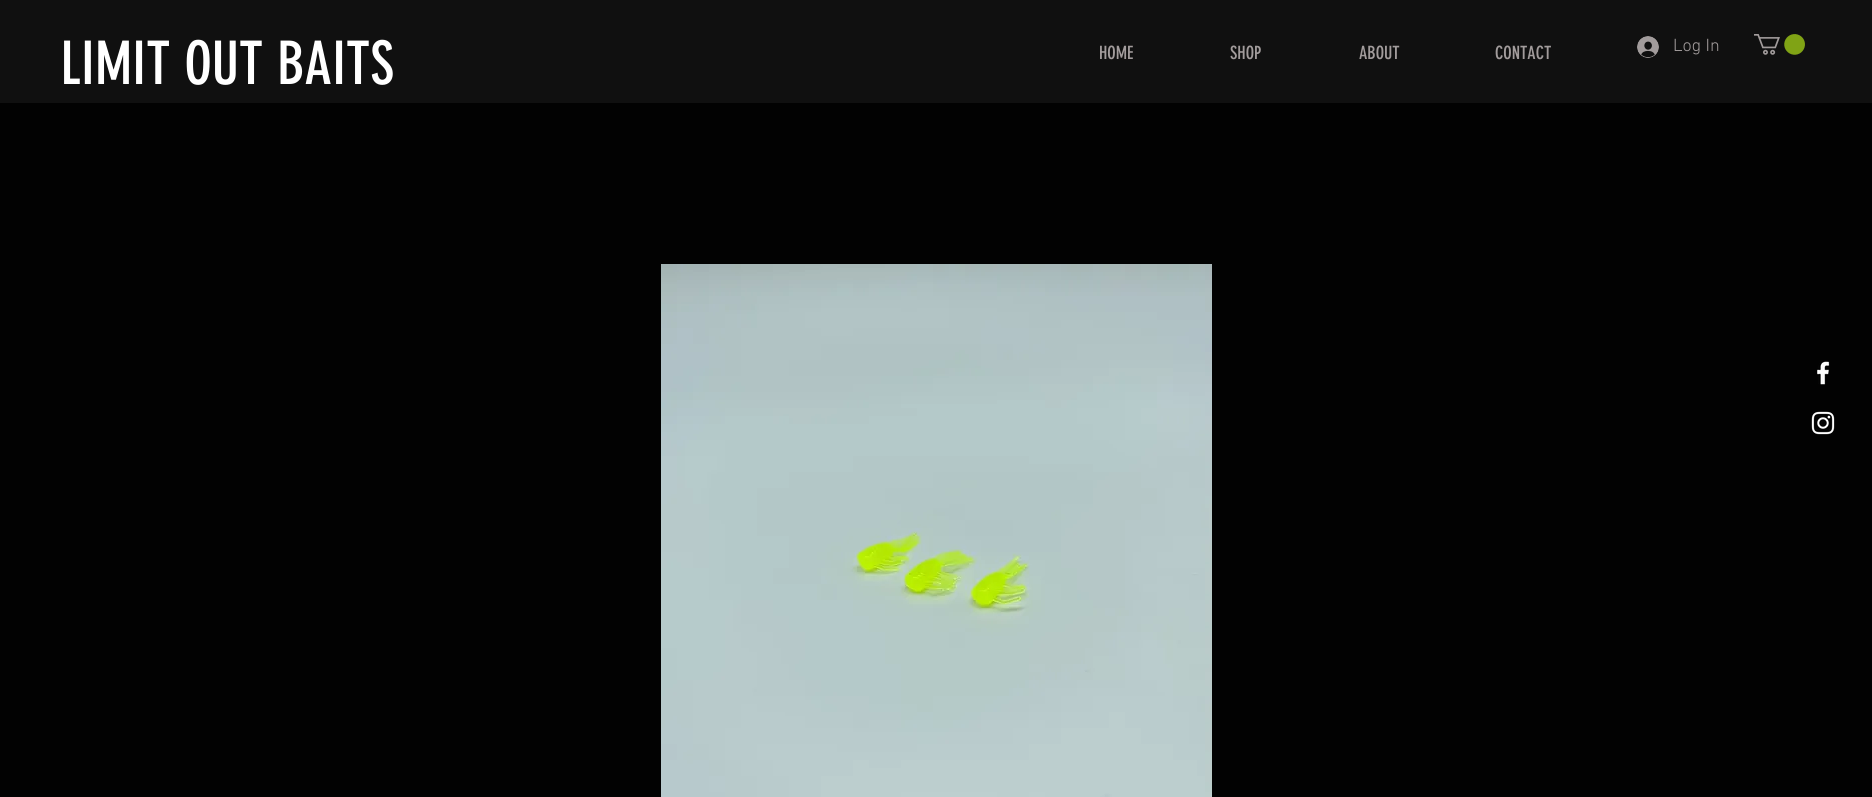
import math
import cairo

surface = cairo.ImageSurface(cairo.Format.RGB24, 1872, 797)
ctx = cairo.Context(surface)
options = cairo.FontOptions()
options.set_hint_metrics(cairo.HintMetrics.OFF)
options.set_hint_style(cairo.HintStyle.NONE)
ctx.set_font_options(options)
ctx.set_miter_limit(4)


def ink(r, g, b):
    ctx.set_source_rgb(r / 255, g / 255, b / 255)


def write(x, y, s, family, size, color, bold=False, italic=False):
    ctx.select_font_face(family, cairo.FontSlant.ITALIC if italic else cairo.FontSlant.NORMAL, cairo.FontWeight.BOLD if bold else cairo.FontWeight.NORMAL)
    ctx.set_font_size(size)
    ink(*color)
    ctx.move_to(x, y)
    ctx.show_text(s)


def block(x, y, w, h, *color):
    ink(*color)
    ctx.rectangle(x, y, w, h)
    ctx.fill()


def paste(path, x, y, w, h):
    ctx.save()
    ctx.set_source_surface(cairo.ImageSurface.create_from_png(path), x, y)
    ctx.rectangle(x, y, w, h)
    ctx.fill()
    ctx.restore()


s1 = dict(family="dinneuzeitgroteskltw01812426", size=59, color=(255, 255, 255))
s2 = dict(family="dinneuzeitgroteskltw01812426", size=18, color=(162, 156, 156))
s3 = dict(family="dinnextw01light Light", size=18, color=(162, 156, 156))

ink(2, 2, 2)
ctx.paint()
block(0, 0, 1872, 103, 16, 16, 16)
write(60, 84, "LIMIT OUT BAITS", **s1)
write(1099, 59, "HOME", **s2)
write(1230, 59, "SHOP", **s2)
write(1359, 59, "ABOUT", **s2)
write(1495, 59, "CONTACT", **s2)
paste("pic1.png", 1637, 36, 22, 22)
write(1673, 51, "Log In", **s3)
paste("pic2.png", 1754, 34, 51, 21)
paste("pic3.png", 661, 264, 551, 533)
paste("pic4.png", 1817, 361, 13, 24)
paste("pic5.png", 1811, 411, 24, 24)
surface.write_to_png("screenshot.png")
